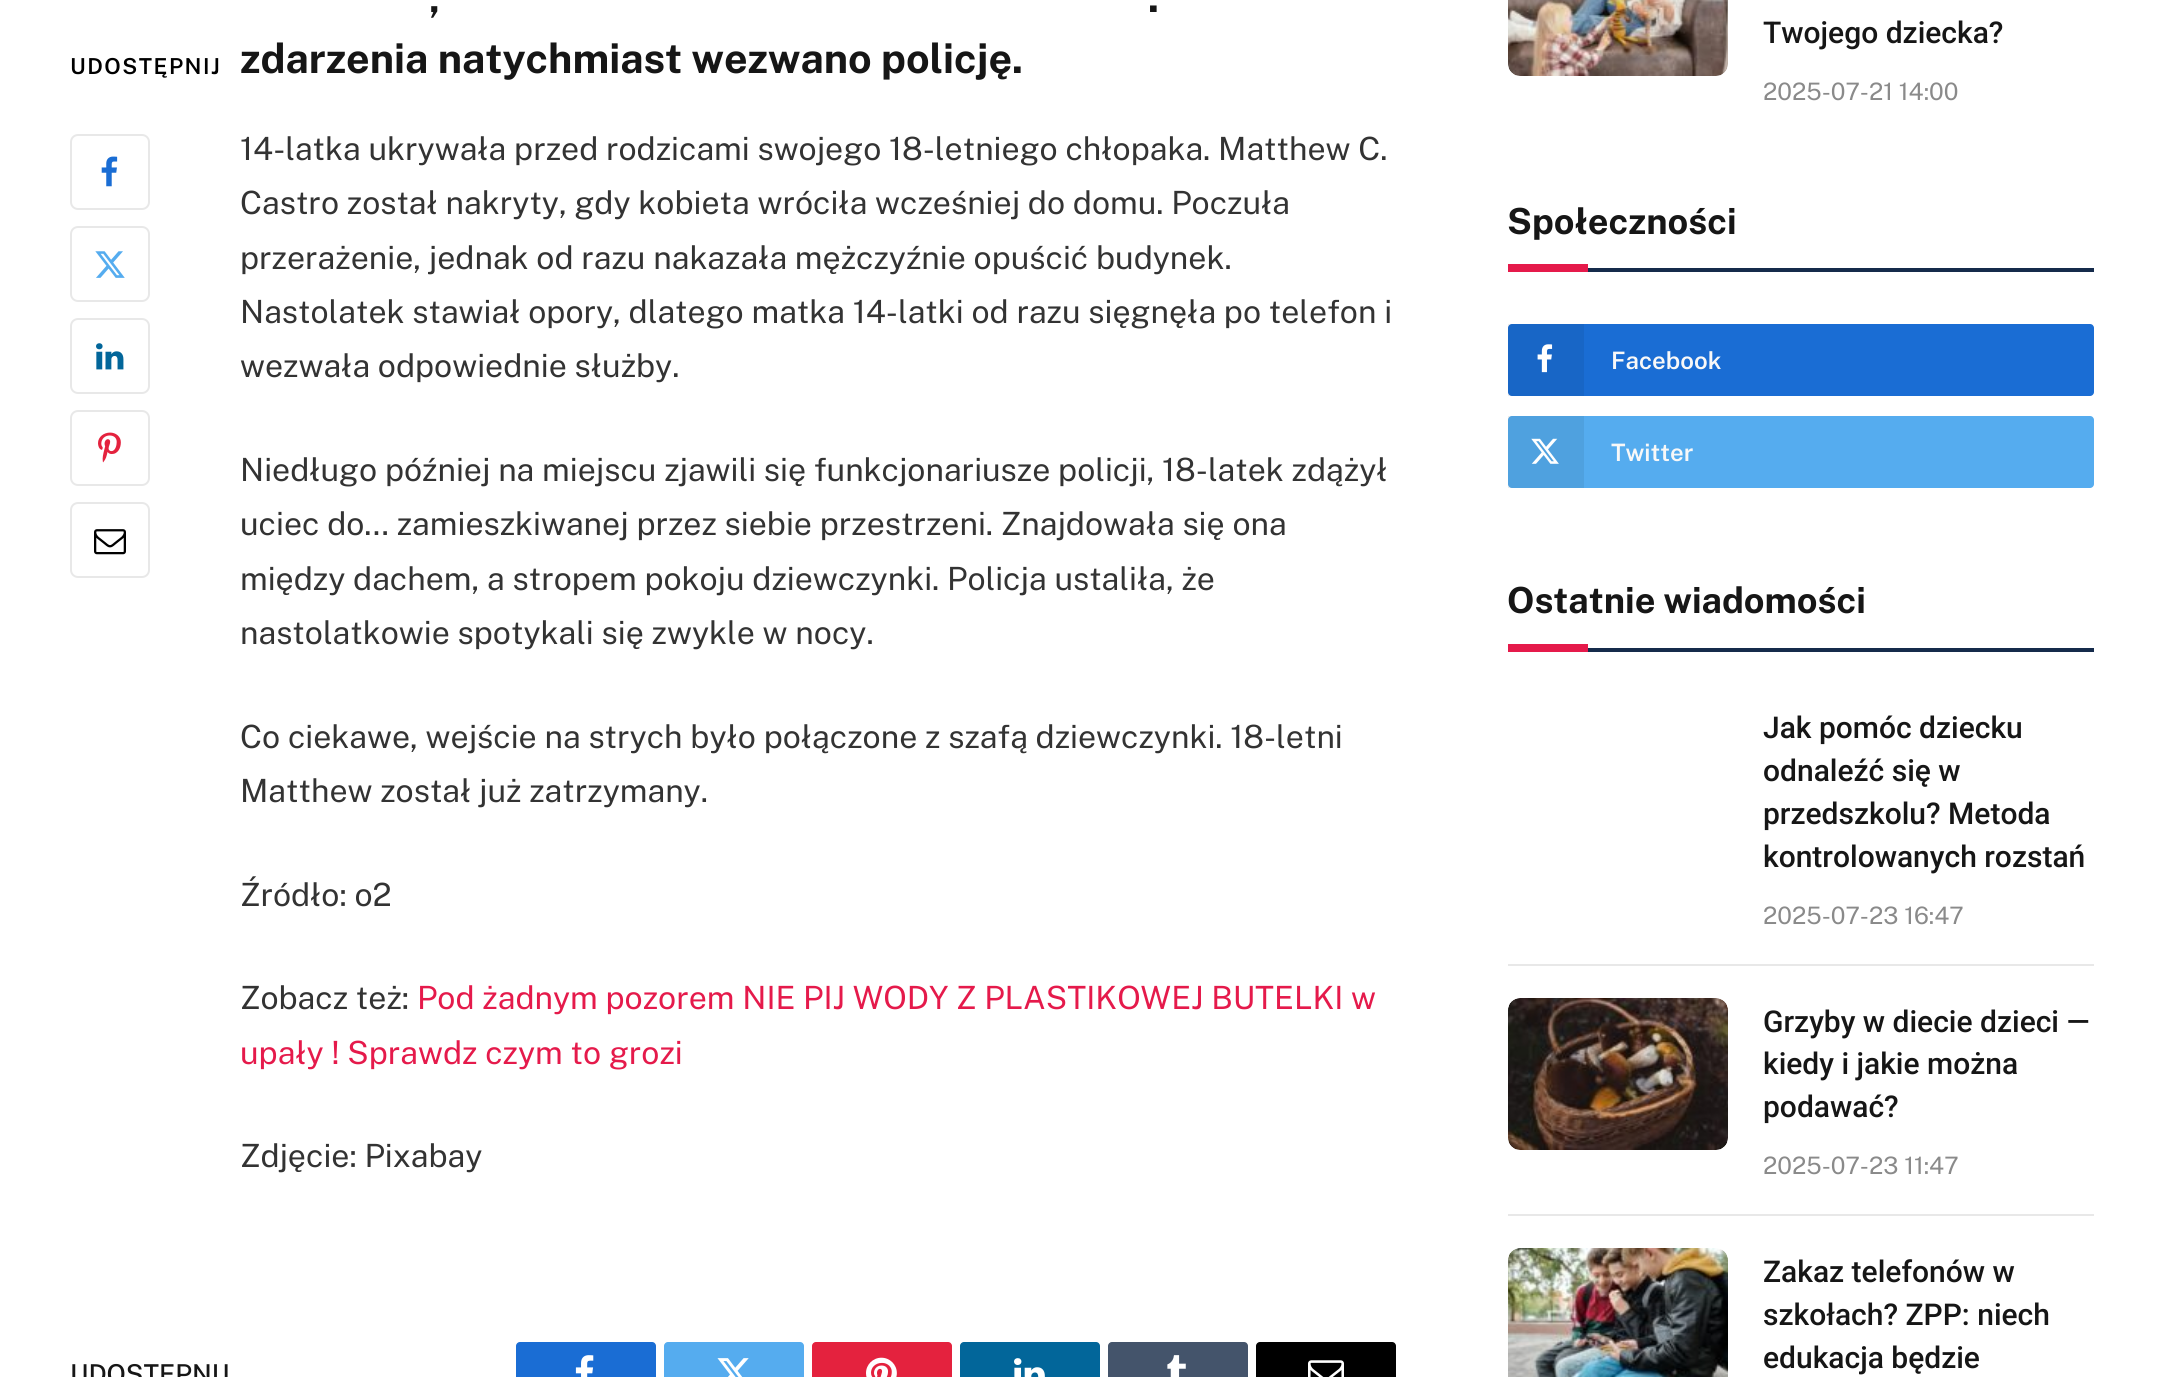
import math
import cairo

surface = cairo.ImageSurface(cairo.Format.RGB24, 2163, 1377)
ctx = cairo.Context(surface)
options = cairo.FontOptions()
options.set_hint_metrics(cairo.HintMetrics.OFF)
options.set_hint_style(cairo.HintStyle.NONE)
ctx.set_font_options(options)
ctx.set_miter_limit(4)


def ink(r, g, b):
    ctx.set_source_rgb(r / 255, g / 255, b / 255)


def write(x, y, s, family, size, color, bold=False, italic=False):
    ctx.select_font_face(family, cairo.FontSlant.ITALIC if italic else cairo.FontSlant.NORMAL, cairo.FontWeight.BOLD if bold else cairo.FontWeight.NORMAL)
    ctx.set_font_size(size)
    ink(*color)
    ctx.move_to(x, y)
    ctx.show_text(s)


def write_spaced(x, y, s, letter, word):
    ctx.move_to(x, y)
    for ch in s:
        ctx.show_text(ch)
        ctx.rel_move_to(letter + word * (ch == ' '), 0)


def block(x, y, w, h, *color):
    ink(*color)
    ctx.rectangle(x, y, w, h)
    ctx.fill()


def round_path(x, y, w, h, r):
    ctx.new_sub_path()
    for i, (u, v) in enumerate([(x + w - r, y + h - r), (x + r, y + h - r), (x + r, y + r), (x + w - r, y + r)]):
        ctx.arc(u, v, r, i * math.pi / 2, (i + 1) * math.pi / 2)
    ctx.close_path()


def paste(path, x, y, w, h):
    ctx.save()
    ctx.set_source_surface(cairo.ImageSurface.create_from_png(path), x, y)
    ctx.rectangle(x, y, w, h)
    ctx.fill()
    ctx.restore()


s1 = dict(family="Public Sans", size=41.1, color=(22, 22, 22), bold=True)
s2 = dict(family="Public Sans", size=32, color=(51, 51, 51))
s3 = dict(family="Public Sans", size=32, color=(229, 26, 75))
s4 = dict(family="Public Sans Medium", size=26, color=(22, 22, 22))
s5 = dict(family="Roboto Medium", size=30, color=(22, 22, 22))
s6 = dict(family="Public Sans", size=24, color=(138, 138, 138))
s7 = dict(family="Public Sans", size=36, color=(22, 22, 22), bold=True)
s8 = dict(family="Public Sans SemiBold", size=24, color=(248, 248, 248))

ink(255, 255, 255)
ctx.paint()
ctx.select_font_face("Public Sans SemiBold")
ctx.set_font_size(22)
ink(0, 0, 0)
write_spaced(70, 74, "UDOSTĘPNIJ", 1.5, 0)
round_path(71, 135, 78, 74, 7)
ink(232, 232, 232)
ctx.stroke()
paste("pic1.png", 101, 156, 17, 31)
round_path(71, 227, 78, 74, 7)
ctx.stroke()
paste("pic2.png", 95, 251, 30, 27)
round_path(71, 319, 78, 74, 7)
ctx.stroke()
paste("pic3.png", 96, 343, 28, 27)
round_path(71, 411, 78, 74, 7)
ctx.stroke()
paste("pic4.png", 98, 432, 23, 31)
round_path(71, 503, 78, 74, 7)
ctx.stroke()
paste("pic5.png", 94, 529, 32, 26)
write(429, 12, ",", **s1)
write(1148, 12, ".", **s1)
write(240, 73, "zdarzenia natychmiast wezwano policję.", **s1)
write(240, 160, "14-latka ukrywała przed rodzicami swojego 18-letniego chłopaka. Matthew C.", **s2)
write(240, 214, "Castro został nakryty, gdy kobieta wróciła wcześniej do domu. Poczuła", **s2)
write(240, 269, "przerażenie, jednak od razu nakazała mężczyźnie opuścić budynek.", **s2)
write(240, 323, "Nastolatek stawiał opory, dlatego matka 14-latki od razu sięgnęła po telefon i", **s2)
write(240, 377, "wezwała odpowiednie służby.", **s2)
write(240, 481, "Niedługo później na miejscu zjawili się funkcjonariusze policji, 18-latek zdążył", **s2)
write(240, 535, "uciec do… zamieszkiwanej przez siebie przestrzeni. Znajdowała się ona", **s2)
write(240, 590, "między dachem, a stropem pokoju dziewczynki. Policja ustaliła, że", **s2)
write(240, 644, "nastolatkowie spotykali się zwykle w nocy.", **s2)
write(240, 748, "Co ciekawe, wejście na strych było połączone z szafą dziewczynki. 18-letni", **s2)
write(240, 802, "Matthew został już zatrzymany.", **s2)
write(240, 906, "Źródło: o2", **s2)
write(240, 1009, "Zobacz też:", **s2)
write(417, 1009, "Pod żadnym pozorem NIE PIJ WODY Z PLASTIKOWEJ BUTELKI w", **s3)
write(240, 1064, "upały ! Sprawdz czym to grozi", **s3)
write(240, 1167, "Zdjęcie: Pixabay", **s2)
write(70, 1383, "UDOSTĘPNIJ", **s4)
ink(26, 109, 212)
round_path(516, 1342, 140, 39, 4)
ctx.fill()
paste("pic6.png", 575, 1355, 19, 22)
ink(85, 172, 239)
round_path(664, 1342, 140, 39, 4)
ctx.fill()
paste("pic7.png", 717, 1358, 32, 19)
ink(228, 34, 62)
round_path(812, 1342, 140, 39, 4)
ctx.fill()
paste("pic8.png", 866, 1357, 31, 20)
ink(2, 102, 154)
round_path(960, 1342, 140, 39, 4)
ctx.fill()
paste("pic9.png", 1014, 1358, 31, 19)
ink(68, 84, 107)
round_path(1108, 1342, 140, 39, 4)
ctx.fill()
paste("pic10.png", 1167, 1355, 19, 22)
ink(0, 0, 0)
round_path(1256, 1342, 140, 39, 4)
ctx.fill()
paste("pic11.png", 1308, 1360, 36, 17)
paste("pic12.png", 1508, 0, 220, 76)
write(1763, 43, "Twojego dziecka?", **s5)
write(1763, 100, "2025-07-21 14:00", **s6)
block(1588, 268, 506, 4, 21, 43, 75)
write(1507, 234, "Społeczności", **s7)
block(1508, 264, 80, 8, 229, 26, 75)
ink(26, 109, 212)
round_path(1508, 324, 586, 72, 4)
ctx.fill()
ctx.set_source_rgba(0, 0, 0, 0.07)
ctx.rectangle(1508, 324, 76, 72)
ctx.fill()
paste("pic13.png", 1537, 344, 16, 29)
write(1611, 369, "Facebook", **s8)
ink(85, 172, 239)
round_path(1508, 416, 586, 72, 4)
ctx.fill()
ctx.set_source_rgba(0, 0, 0, 0.07)
ctx.rectangle(1508, 416, 76, 72)
ctx.fill()
paste("pic14.png", 1531, 438, 28, 26)
write(1611, 461, "Twitter", **s8)
block(1588, 648, 506, 4, 21, 43, 75)
write(1507, 613, "Ostatnie wiadomości", **s7)
block(1508, 644, 80, 8, 229, 26, 75)
write(1763, 738, "Jak pomóc dziecku", **s5)
write(1763, 781, "odnaleźć się w", **s5)
write(1763, 824, "przedszkolu? Metoda", **s5)
write(1763, 867, "kontrolowanych rozstań", **s5)
write(1763, 924, "2025-07-23 16:47", **s6)
block(1508, 964, 586, 2, 232, 232, 232)
paste("pic15.png", 1508, 998, 220, 152)
write(1763, 1032, "Grzyby w diecie dzieci —", **s5)
write(1763, 1074, "kiedy i jakie można", **s5)
write(1763, 1117, "podawać?", **s5)
write(1763, 1174, "2025-07-23 11:47", **s6)
block(1508, 1214, 586, 2, 232, 232, 232)
paste("pic16.png", 1508, 1248, 220, 129)
write(1763, 1282, "Zakaz telefonów w", **s5)
write(1763, 1325, "szkołach? ZPP: niech", **s5)
write(1763, 1368, "edukacja będzie", **s5)
surface.write_to_png("screenshot.png")
